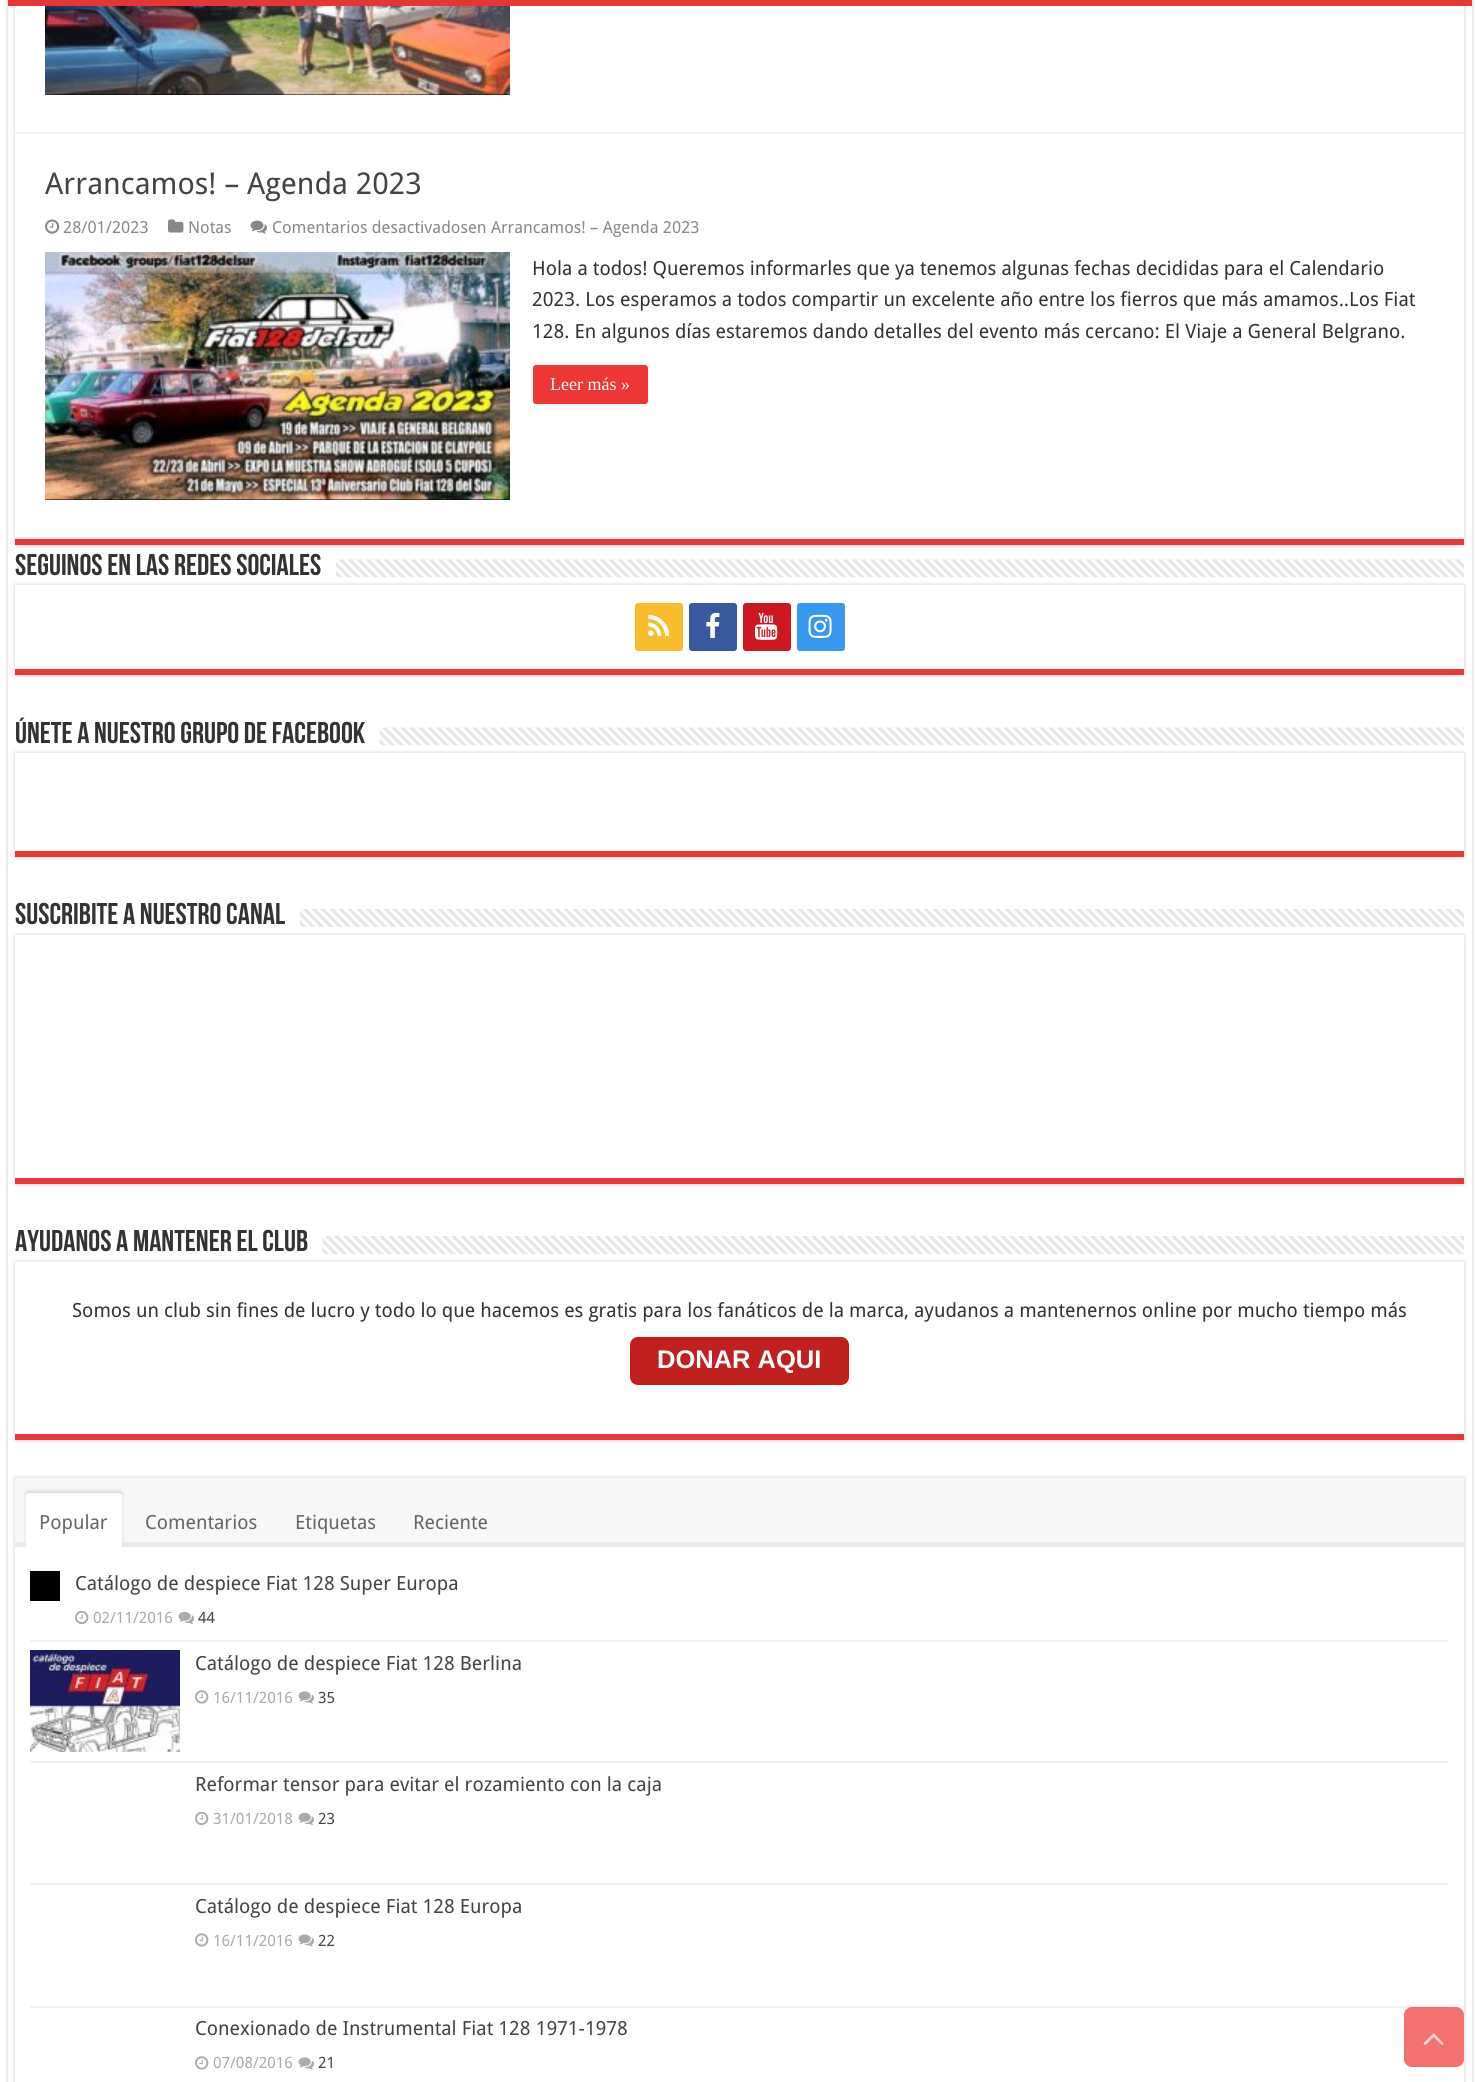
import math
import cairo

surface = cairo.ImageSurface(cairo.Format.RGB24, 1478, 2082)
ctx = cairo.Context(surface)
options = cairo.FontOptions()
options.set_hint_metrics(cairo.HintMetrics.OFF)
options.set_hint_style(cairo.HintStyle.NONE)
ctx.set_font_options(options)
ctx.set_miter_limit(4)


def ink(r, g, b):
    ctx.set_source_rgb(r / 255, g / 255, b / 255)


def write(x, y, s, family, size, color, bold=False, italic=False):
    ctx.select_font_face(family, cairo.FontSlant.ITALIC if italic else cairo.FontSlant.NORMAL, cairo.FontWeight.BOLD if bold else cairo.FontWeight.NORMAL)
    ctx.set_font_size(size)
    ink(*color)
    ctx.move_to(x, y)
    ctx.show_text(s)


def block(x, y, w, h, *color):
    ink(*color)
    ctx.rectangle(x, y, w, h)
    ctx.fill()


def round_path(x, y, w, h, r):
    ctx.new_sub_path()
    for i, (u, v) in enumerate([(x + w - r, y + h - r), (x + r, y + h - r), (x + r, y + r), (x + w - r, y + r)]):
        ctx.arc(u, v, r, i * math.pi / 2, (i + 1) * math.pi / 2)
    ctx.close_path()


def blur_box(x, y, w, h, r, blur, alpha):
    ctx.push_group_with_content(cairo.Content.ALPHA)
    ctx.set_operator(cairo.Operator.SOURCE)
    for i in range(15, -16, -2):
        e = blur * i / 6
        if min(w, h) + 2 * e > 0:
            ctx.set_source_rgba(0, 0, 0, alpha * math.erfc((i - 1) / 8.5) / 2)
            round_path(x - e, y - e, w + 2 * e, h + 2 * e, max(0, min(r + e + blur * .6, min(w, h) / 2 + e)))
            ctx.fill()
    ctx.mask(ctx.pop_group())


def paste(path, x, y, w, h):
    ctx.save()
    ctx.set_source_surface(cairo.ImageSurface.create_from_png(path), x, y)
    ctx.rectangle(x, y, w, h)
    ctx.fill()
    ctx.restore()


s1 = dict(family="Droid Sans", size=30, color=(68, 68, 68))
s2 = dict(family="Droid Sans", size=16.6, color=(136, 136, 136))
s3 = dict(family="Droid Sans", size=19.5, color=(51, 51, 51))
s4 = dict(family="Liberation Serif", size=18, color=(255, 255, 255))
s5 = dict(family="Bebas Neue", size=30, color=(51, 51, 51), bold=True)
s6 = dict(family="Liberation Sans", size=25.5, color=(255, 255, 255), bold=True)
s7 = dict(family="Droid Sans", size=19.5, color=(102, 102, 102))
s8 = dict(family="Droid Sans", size=19.5, color=(68, 68, 68))
s9 = dict(family="Droid Sans", size=15.5, color=(170, 170, 170))
s10 = dict(family="Droid Sans", size=15.5, color=(68, 68, 68))

ink(255, 255, 255)
ctx.paint()
ink(202, 202, 202)
blur_box(8, -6, 1464, 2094, 0, 2, 1)
block(8, 0, 1464, 2082, 255, 255, 255)
ink(202, 202, 202)
blur_box(15, -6, 1449, 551, 0, 2, 1)
block(15, 0, 1449, 537, 255, 255, 255)
block(45, 94, 465, 1, 0, 0, 0)
paste("pic1.png", 45, 0, 465, 95)
ctx.set_source_rgba(0.176, 0.176, 0.176, 0.95)
ctx.rectangle(8, 0, 1464, 6)
ctx.fill()
ctx.set_source_rgba(0.937, 0.212, 0.212, 0.95)
ctx.rectangle(8, 0, 1464, 6)
ctx.fill()
block(15, 539, 1449, 6, 239, 54, 54)
block(15, 132, 1449, 2, 242, 242, 242)
block(15, 537, 1449, 2, 242, 242, 242)
write(45, 194, "Arrancamos! – Agenda 2023", **s1)
paste("pic2.png", 45, 219, 15, 15)
write(63, 233, "28/01/2023", **s2)
paste("pic3.png", 168, 219, 16, 14)
write(188, 233, "Notas", **s2)
paste("pic4.png", 250, 220, 17, 14)
write(272, 233, "Comentarios desactivadosen Arrancamos! – Agenda 2023", **s2)
block(45, 499, 465, 1, 0, 0, 0)
paste("pic5.png", 45, 252, 465, 248)
write(532, 275, "Hola a todos! Queremos informarles que ya tenemos algunas fechas decididas para el Calendario", **s3)
write(532, 306, "2023. Los esperamos a todos compartir un excelente año entre los fierros que más amamos..Los Fiat", **s3)
write(532, 338, "128. En algunos días estaremos dando detalles del evento más cercano: El Viaje a General Belgrano.", **s3)
ink(239, 54, 54)
round_path(533, 365, 115, 39, 3)
ctx.fill()
write(550, 390, "Leer más »", **s4)
write(15, 575, "Seguinos en las Redes Sociales", **s5)
paste("pic6.png", 336, 559, 1128, 19)
ctx.save()
ctx.set_fill_rule(cairo.FillRule.EVEN_ODD)
ctx.new_path()
ctx.move_to(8, 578)
ctx.line_to(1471, 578)
ctx.line_to(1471, 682)
ctx.line_to(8, 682)
ctx.close_path()
ctx.move_to(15, 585)
ctx.line_to(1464, 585)
ctx.line_to(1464, 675)
ctx.line_to(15, 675)
ctx.close_path()
ctx.clip()
ink(202, 202, 202)
blur_box(15, 585, 1449, 90, 0, 2, 1)
ctx.restore()
block(15, 669, 1449, 6, 239, 54, 54)
ink(248, 188, 46)
round_path(635, 603, 48, 48, 3)
ctx.fill()
paste("pic7.png", 648, 614, 22, 22)
ink(57, 89, 159)
round_path(689, 603, 48, 48, 3)
ctx.fill()
paste("pic8.png", 706, 612, 14, 26)
ink(204, 24, 30)
round_path(743, 603, 48, 48, 3)
ctx.fill()
paste("pic9.png", 754, 612, 24, 28)
ink(56, 151, 240)
round_path(797, 603, 48, 48, 3)
ctx.fill()
paste("pic10.png", 808, 614, 24, 24)
write(15, 743, "Únete a nuestro Grupo de Facebook", **s5)
paste("pic11.png", 379, 727, 1085, 19)
ink(202, 202, 202)
blur_box(15, 753, 1449, 104, 0, 2, 1)
block(15, 753, 1449, 98, 255, 255, 255)
block(15, 851, 1449, 6, 239, 54, 54)
write(15, 924, "SUSCRIBITE A NUESTRO CANAL", **s5)
paste("pic12.png", 300, 909, 1164, 18)
ink(202, 202, 202)
blur_box(15, 935, 1449, 249, 0, 2, 1)
block(15, 935, 1449, 243, 255, 255, 255)
block(15, 1178, 1449, 6, 239, 54, 54)
write(15, 1251, "Ayudanos a mantener el club", **s5)
paste("pic13.png", 322, 1236, 1142, 18)
ctx.save()
ctx.set_fill_rule(cairo.FillRule.EVEN_ODD)
ctx.new_path()
ctx.move_to(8, 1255)
ctx.line_to(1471, 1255)
ctx.line_to(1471, 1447)
ctx.line_to(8, 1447)
ctx.close_path()
ctx.move_to(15, 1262)
ctx.line_to(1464, 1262)
ctx.line_to(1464, 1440)
ctx.line_to(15, 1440)
ctx.close_path()
ctx.clip()
ink(202, 202, 202)
blur_box(15, 1262, 1449, 178, 0, 2, 1)
ctx.restore()
block(15, 1434, 1449, 6, 239, 54, 54)
write(72, 1317, "Somos un club sin fines de lucro y todo lo que hacemos es gratis para los fanáticos de la marca, ayudanos a mantenernos online por mucho tiempo más", **s3)
ink(193, 32, 32)
round_path(631, 1338, 217, 46, 7)
ctx.fill_preserve()
ink(204, 27, 23)
ctx.stroke()
write(657, 1368, "DONAR AQUI", **s6)
ctx.save()
ctx.set_fill_rule(cairo.FillRule.EVEN_ODD)
ctx.new_path()
ctx.move_to(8, 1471)
ctx.line_to(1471, 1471)
ctx.line_to(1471, 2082)
ctx.line_to(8, 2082)
ctx.close_path()
ctx.move_to(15, 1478)
ctx.line_to(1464, 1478)
ctx.line_to(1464, 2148)
ctx.line_to(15, 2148)
ctx.close_path()
ctx.clip()
ink(202, 202, 202)
blur_box(15, 1478, 1449, 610, 0, 2, 1)
ctx.restore()
block(15, 1478, 1449, 64, 247, 247, 247)
block(15, 1542, 1449, 5, 234, 234, 234)
ink(212, 212, 212)
blur_box(26, 1491, 96, 54, 3, 1.5, 1)
ink(255, 255, 255)
ctx.new_path()
ctx.move_to(29, 1493)
ctx.line_to(119, 1493)
ctx.curve_to(120.5, 1493, 122, 1494.5, 122, 1496)
ctx.line_to(122, 1547)
ctx.line_to(26, 1547)
ctx.line_to(26, 1496)
ctx.curve_to(26, 1494.5, 27.5, 1493, 29, 1493)
ctx.close_path()
ctx.fill()
write(39, 1529, "Popular", **s7)
write(145, 1529, "Comentarios", **s7)
write(295, 1529, "Etiquetas", **s7)
write(413, 1529, "Reciente", **s7)
block(30, 1640, 1419, 2, 242, 242, 242)
block(30, 1571, 30, 30, 0, 0, 0)
write(75, 1590, "Catálogo de despiece Fiat 128 Super Europa", **s8)
paste("pic14.png", 75, 1610, 14, 15)
write(93, 1623, "02/11/2016", **s9)
paste("pic15.png", 178, 1611, 17, 14)
write(198, 1623, "44", **s10)
block(30, 1761, 1419, 2, 242, 242, 242)
paste("pic16.png", 30, 1650, 150, 102)
write(195, 1670, "Catálogo de despiece Fiat 128 Berlina", **s8)
paste("pic17.png", 195, 1690, 14, 14)
write(213, 1703, "16/11/2016", **s9)
paste("pic18.png", 298, 1691, 16, 13)
write(318, 1703, "35", **s10)
block(30, 1883, 1419, 2, 242, 242, 242)
write(195, 1791, "Reformar tensor para evitar el rozamiento con la caja", **s8)
paste("pic14.png", 195, 1811, 14, 15)
write(213, 1824, "31/01/2018", **s9)
paste("pic15.png", 298, 1812, 17, 14)
write(318, 1824, "23", **s10)
block(30, 2006, 1419, 2, 242, 242, 242)
write(195, 1913, "Catálogo de despiece Fiat 128 Europa", **s8)
paste("pic17.png", 195, 1933, 14, 14)
write(213, 1946, "16/11/2016", **s9)
paste("pic18.png", 298, 1934, 16, 13)
write(318, 1946, "22", **s10)
write(195, 2035, "Conexionado de Instrumental Fiat 128 1971-1978", **s8)
paste("pic17.png", 195, 2056, 14, 14)
write(213, 2068, "07/08/2016", **s9)
paste("pic18.png", 298, 2057, 16, 13)
write(318, 2068, "21", **s10)
ctx.set_source_rgba(0.937, 0.212, 0.212, 0.7)
round_path(1404, 2007, 60, 60, 8)
ctx.fill()
paste("pic19.png", 1423, 2033, 21, 12)
surface.write_to_png("screenshot.png")
